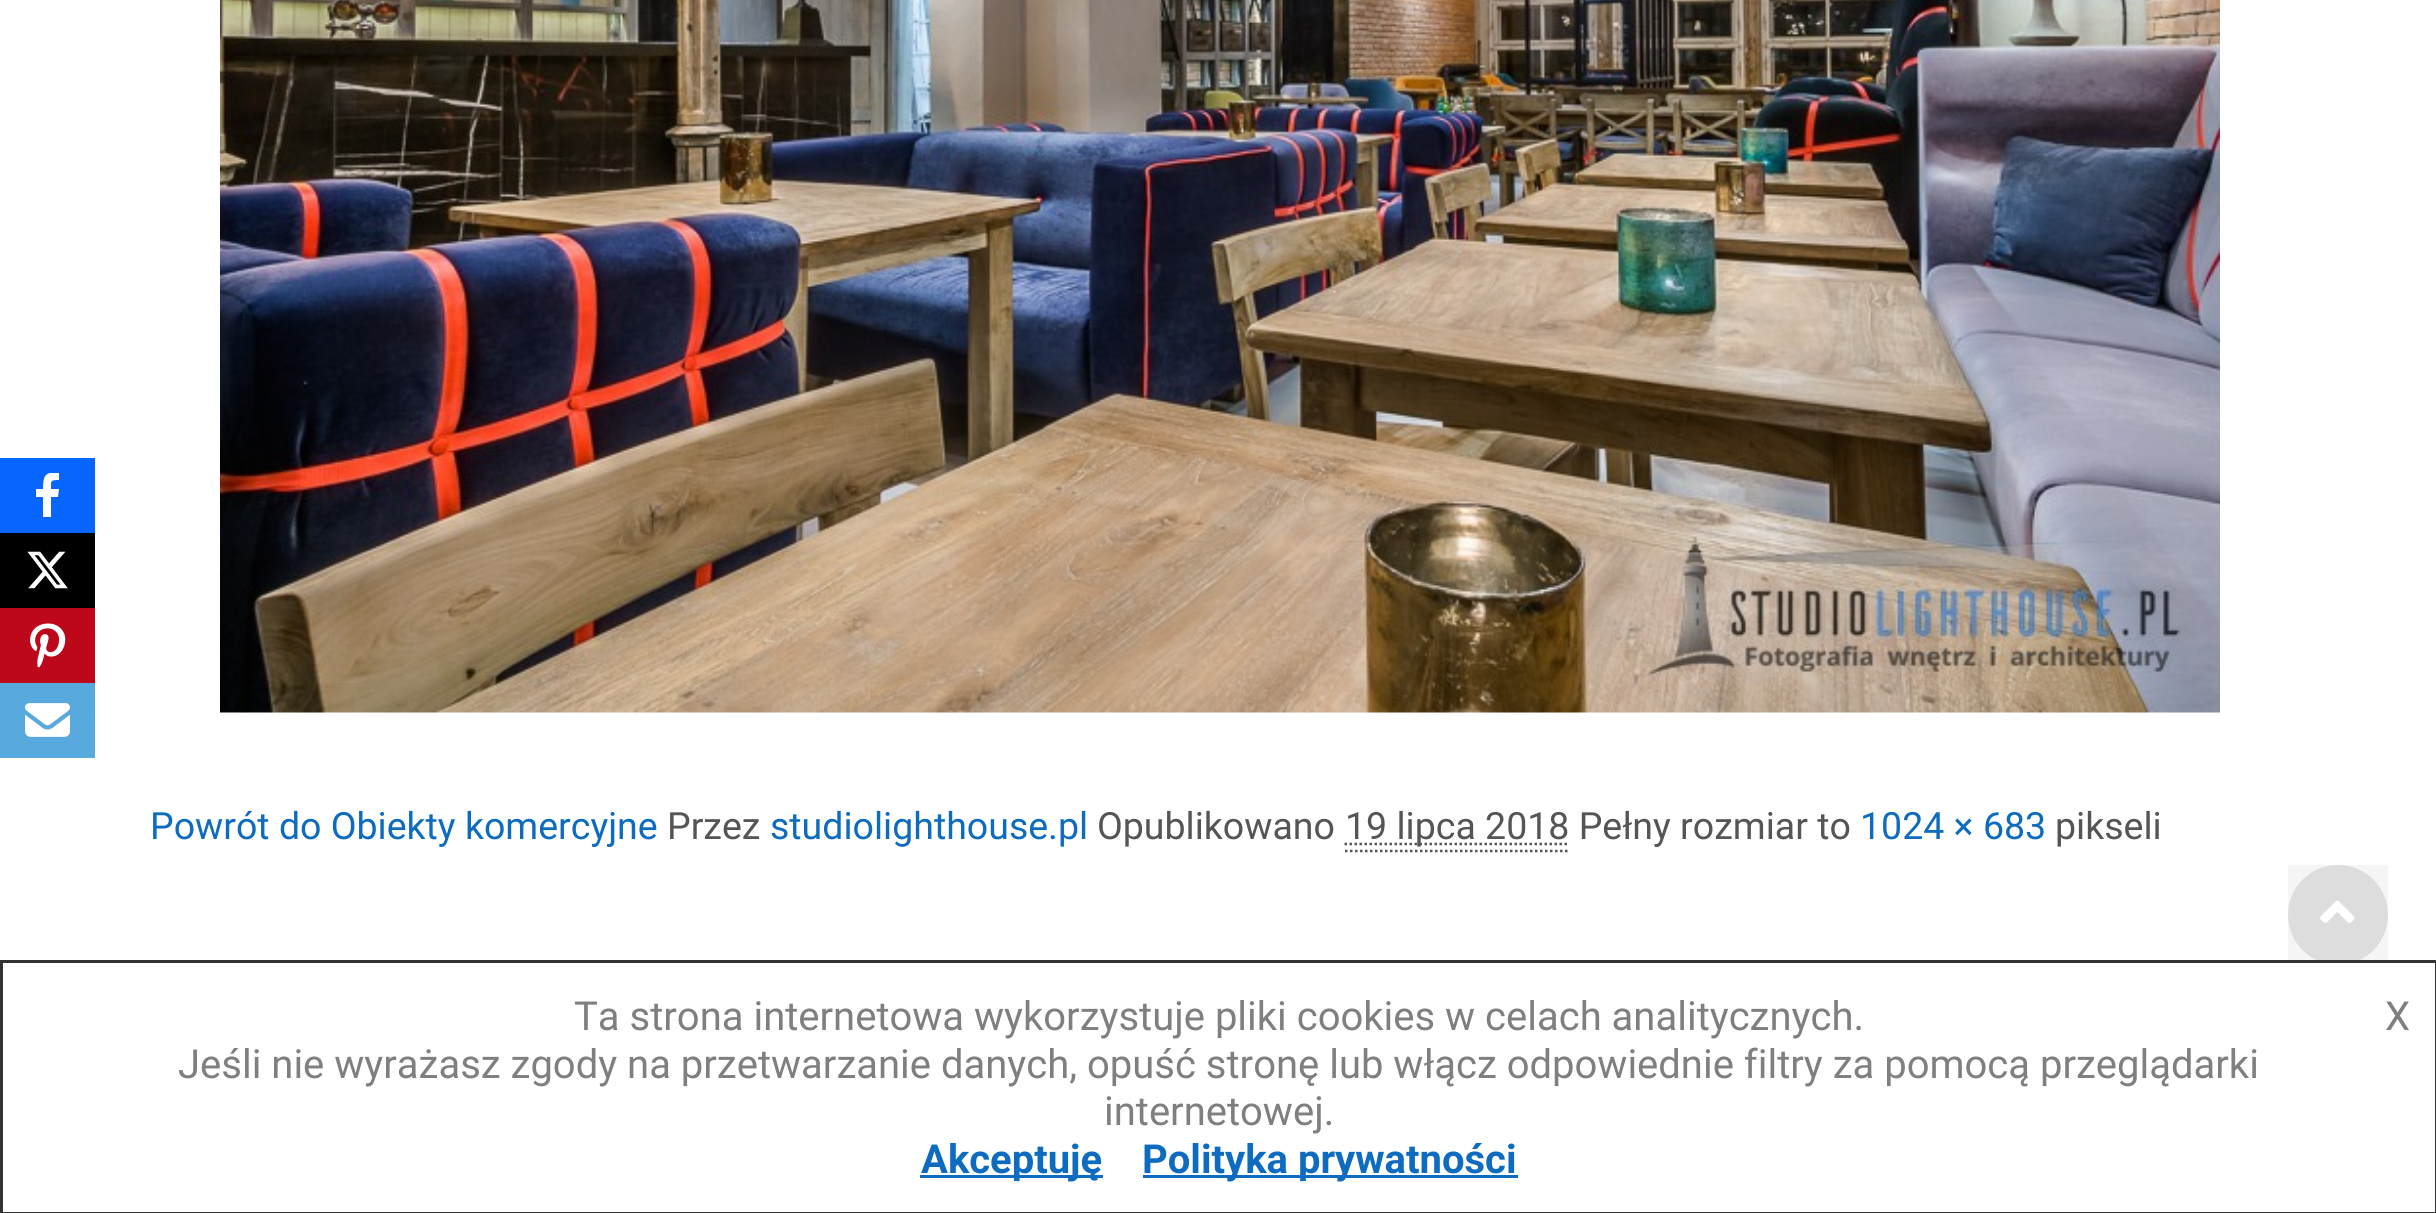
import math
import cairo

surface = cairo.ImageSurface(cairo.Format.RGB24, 2436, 1213)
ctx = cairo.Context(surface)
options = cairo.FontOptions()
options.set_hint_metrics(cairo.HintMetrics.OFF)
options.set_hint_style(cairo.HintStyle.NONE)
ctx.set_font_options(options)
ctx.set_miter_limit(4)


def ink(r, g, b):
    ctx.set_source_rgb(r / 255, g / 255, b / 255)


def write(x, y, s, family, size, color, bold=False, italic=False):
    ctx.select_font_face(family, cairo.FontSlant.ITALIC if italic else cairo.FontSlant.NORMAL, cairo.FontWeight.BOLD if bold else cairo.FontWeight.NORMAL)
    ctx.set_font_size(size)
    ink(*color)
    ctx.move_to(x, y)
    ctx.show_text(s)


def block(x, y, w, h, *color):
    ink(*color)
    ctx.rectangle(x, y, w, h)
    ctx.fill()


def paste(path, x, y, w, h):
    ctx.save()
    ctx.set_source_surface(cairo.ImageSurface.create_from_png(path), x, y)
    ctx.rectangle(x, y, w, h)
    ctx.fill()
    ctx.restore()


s1 = dict(family="Roboto", size=37.5, color=(13, 108, 191))
s2 = dict(family="Roboto", size=37.5, color=(85, 85, 85))
s3 = dict(family="Roboto", size=40, color=(127, 127, 127))
s4 = dict(family="Roboto", size=40, color=(13, 108, 191), bold=True)

ink(255, 255, 255)
ctx.paint()
block(0, 458, 95, 75, 8, 102, 255)
ctx.save()
ctx.rectangle(25, 473, 45, 45)
ctx.clip()
ink(255, 255, 255)
ctx.new_path()
ctx.move_to(51, 517)
ctx.line_to(51, 497)
ctx.line_to(58, 497)
ctx.line_to(59, 489)
ctx.line_to(51, 489)
ctx.curve_to(51, 481, 50, 480, 59, 480)
ctx.line_to(59, 473)
ctx.curve_to(45, 471, 43, 476, 43, 489)
ctx.line_to(36, 489)
ctx.line_to(36, 497)
ctx.line_to(43, 497)
ctx.line_to(43, 517)
ctx.close_path()
ctx.fill()
ctx.restore()
block(0, 533, 95, 75, 0, 0, 0)
paste("pic1.png", 27, 551, 41, 38)
block(0, 608, 95, 75, 189, 8, 28)
paste("pic2.png", 30, 623, 36, 45)
block(0, 683, 95, 75, 88, 169, 222)
paste("pic3.png", 25, 703, 45, 34)
paste("pic4.png", 220, 0, 2000, 713)
write(150, 839, "Powrót do Obiekty komercyjne", **s1)
write(667, 839, "Przez", **s2)
write(770, 839, "studiolighthouse.pl", **s1)
write(1097, 839, "Opublikowano", **s2)
ctx.new_path()
ctx.move_to(1344.5, 844)
ctx.line_to(1569, 844)
ctx.set_line_width(2.5)
ctx.set_dash([2.5, 2.5])
ctx.stroke()
write(1345, 839, "19 lipca 2018 Pełny rozmiar to", **s2)
ctx.new_path()
ctx.move_to(1345, 851)
ctx.line_to(1570, 851)
ctx.stroke()
write(1860, 839, "1024 × 683", **s1)
write(2055, 839, "pikseli", **s2)
ink(230, 230, 230)
ctx.new_path()
ctx.arc(2338, 915, 50, 0, 2 * math.pi)
ctx.fill()
ctx.set_source_rgba(0, 0, 0, 0.04)
ctx.rectangle(2288, 865, 100, 95)
ctx.fill()
paste("pic5.png", 2320, 900, 35, 23)
block(2325, 963, 27, 2, 255, 255, 255)
ctx.rectangle(1.5, 961.5, 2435, 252)
ink(51, 51, 51)
ctx.set_line_width(3)
ctx.set_dash([])
ctx.stroke()
write(574, 1030, "Ta strona internetowa wykorzystuje pliki cookies w celach analitycznych.", **s3)
write(2385, 1030, "X", **s3)
write(178, 1078, "Jeśli nie wyrażasz zgody na przetwarzanie danych, opuść stronę lub włącz odpowiednie filtry za pomocą przeglądarki", **s3)
write(1104, 1125, "internetowej.", **s3)
block(920, 1175, 183, 3, 13, 108, 191)
write(921, 1173, "Akceptuję", **s4)
block(1143, 1175, 375, 3, 13, 108, 191)
write(1142, 1173, "Polityka prywatności", **s4)
surface.write_to_png("screenshot.png")
